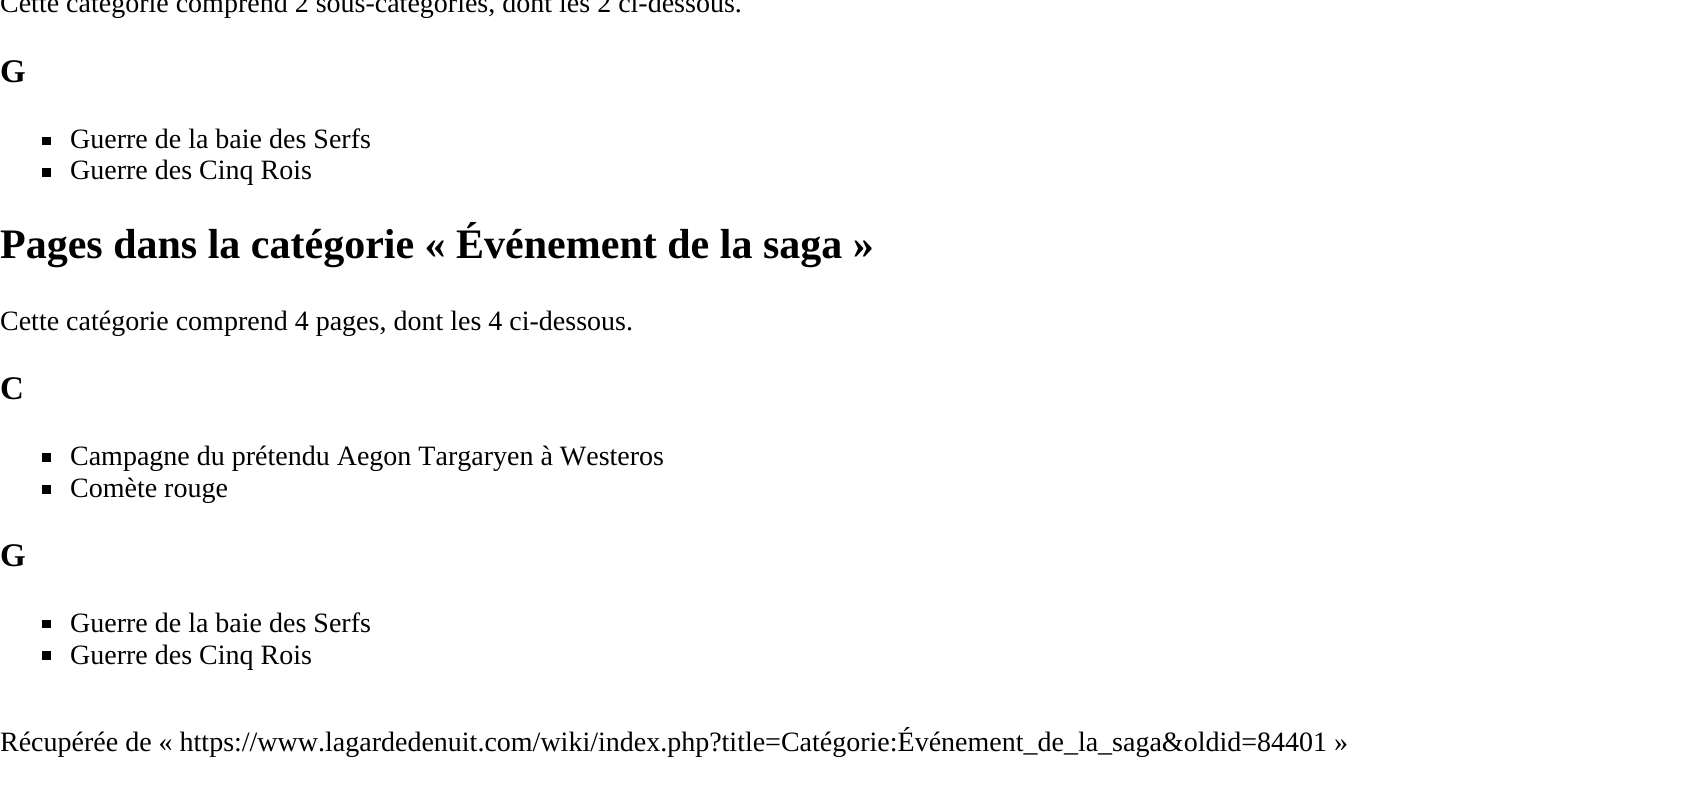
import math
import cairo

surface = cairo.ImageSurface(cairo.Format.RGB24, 1706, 800)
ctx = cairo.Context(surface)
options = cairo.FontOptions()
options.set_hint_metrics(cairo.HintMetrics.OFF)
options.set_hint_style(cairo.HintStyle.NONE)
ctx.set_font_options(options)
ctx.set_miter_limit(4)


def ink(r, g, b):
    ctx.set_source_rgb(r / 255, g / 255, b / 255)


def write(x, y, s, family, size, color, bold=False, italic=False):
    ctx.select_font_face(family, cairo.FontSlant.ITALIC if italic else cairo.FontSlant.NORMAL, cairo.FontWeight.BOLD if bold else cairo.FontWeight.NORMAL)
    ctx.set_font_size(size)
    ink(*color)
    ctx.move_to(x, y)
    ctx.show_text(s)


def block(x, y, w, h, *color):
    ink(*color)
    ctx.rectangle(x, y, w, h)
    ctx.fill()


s1 = dict(family="Liberation Serif", size=28, color=(0, 0, 0))
s2 = dict(family="Liberation Serif", size=33, color=(0, 0, 0), bold=True)
s3 = dict(family="Liberation Serif", size=42, color=(0, 0, 0), bold=True)

ink(255, 255, 255)
ctx.paint()
write(0, 12, "Cette catégorie comprend 2 sous-catégories, dont les 2 ci-dessous.", **s1)
write(0, 82, "G", **s2)
block(42, 137, 9, 8, 0, 0, 0)
write(70, 148, "Guerre de la baie des Serfs", **s1)
block(42, 168, 9, 9, 0, 0, 0)
write(70, 179, "Guerre des Cinq Rois", **s1)
write(0, 258, "Pages dans la catégorie « Événement de la saga »", **s3)
write(0, 330, "Cette catégorie comprend 4 pages, dont les 4 ci-dessous.", **s1)
write(0, 399, "C", **s2)
block(42, 453, 9, 9, 0, 0, 0)
write(70, 465, "Campagne du prétendu Aegon Targaryen à Westeros", **s1)
block(42, 485, 9, 9, 0, 0, 0)
write(70, 497, "Comète rouge", **s1)
write(0, 566, "G", **s2)
block(42, 620, 9, 8, 0, 0, 0)
write(70, 632, "Guerre de la baie des Serfs", **s1)
block(42, 651, 9, 9, 0, 0, 0)
write(70, 664, "Guerre des Cinq Rois", **s1)
write(0, 751, "Récupérée de « https://www.lagardedenuit.com/wiki/index.php?title=Catégorie:Événement_de_la_saga&oldid=84401 »", **s1)
surface.write_to_png("screenshot.png")
